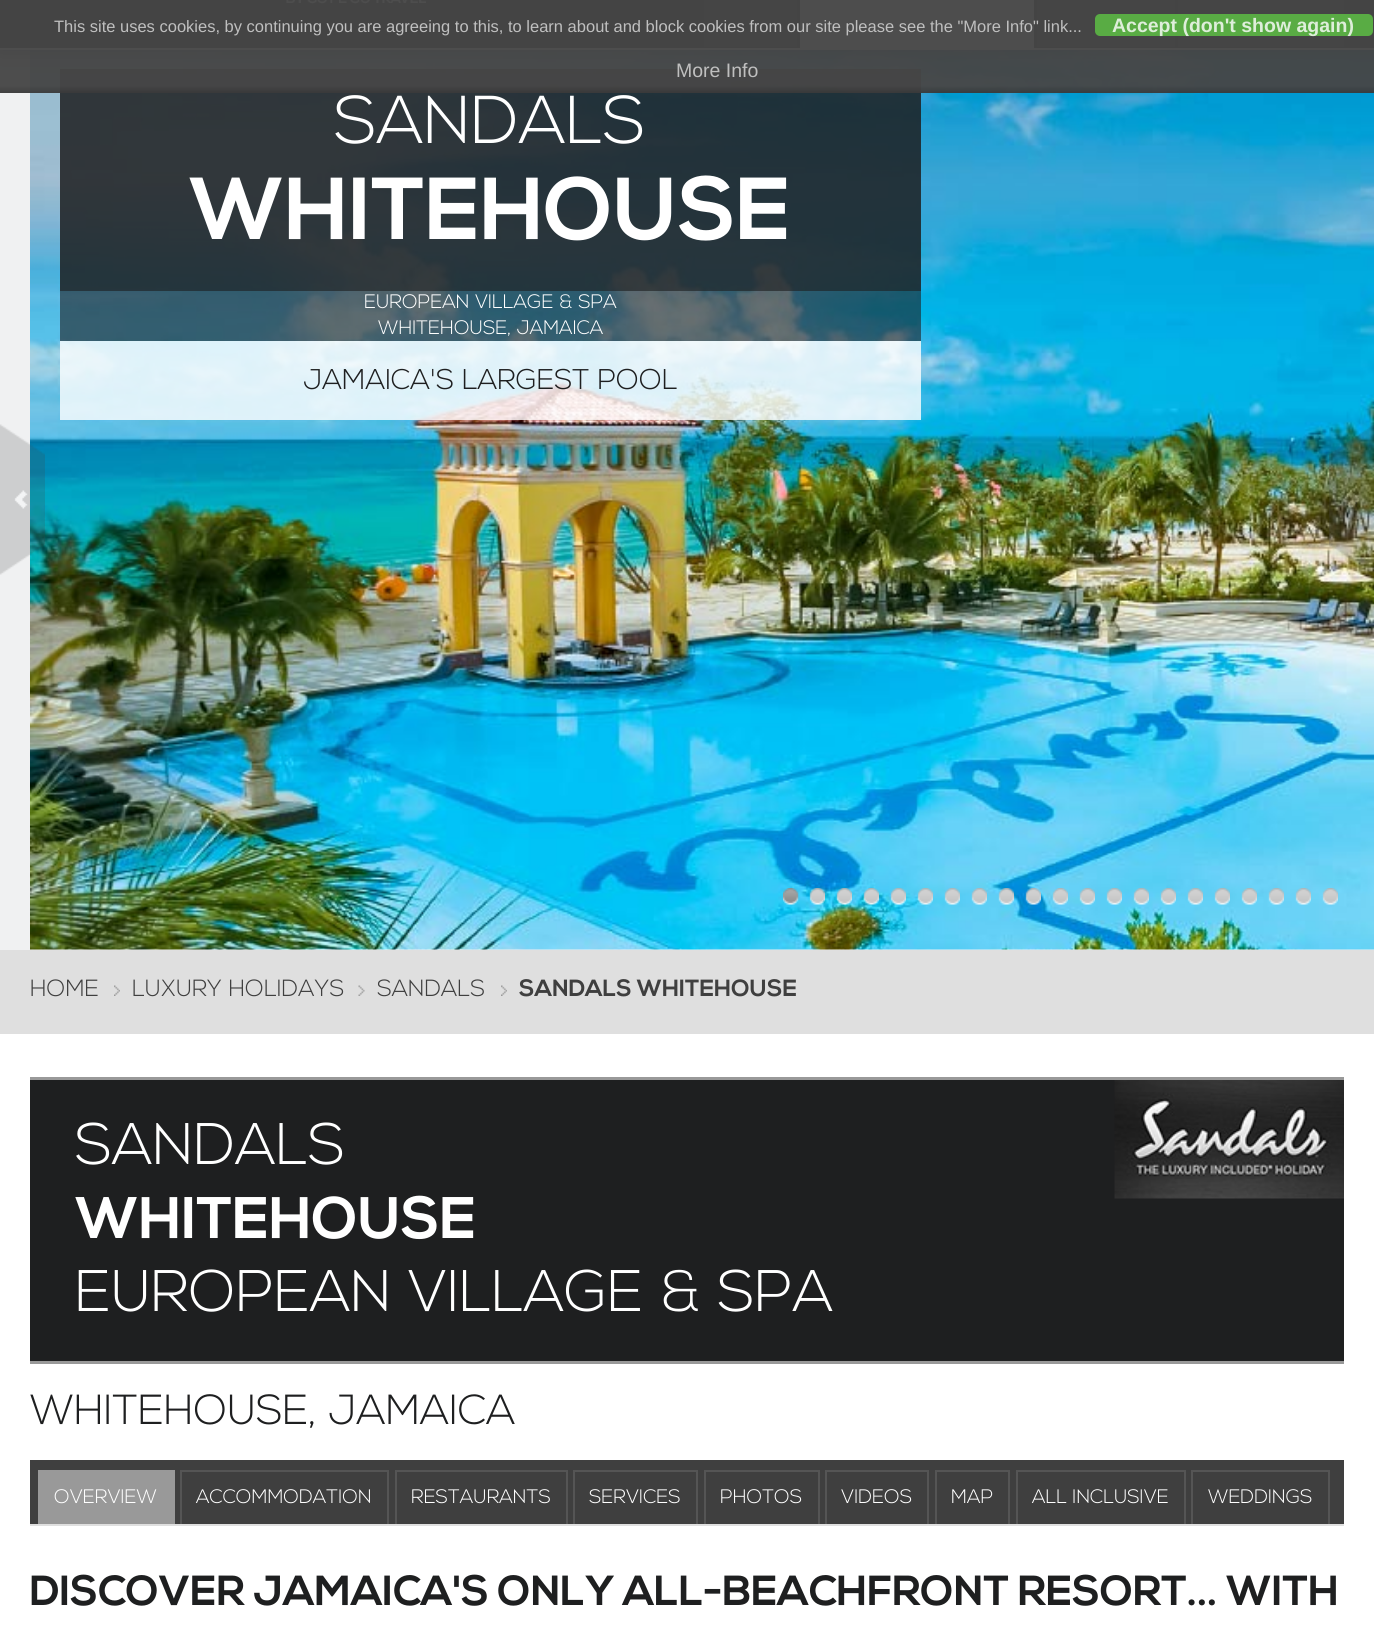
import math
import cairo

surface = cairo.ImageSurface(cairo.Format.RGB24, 1374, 1630)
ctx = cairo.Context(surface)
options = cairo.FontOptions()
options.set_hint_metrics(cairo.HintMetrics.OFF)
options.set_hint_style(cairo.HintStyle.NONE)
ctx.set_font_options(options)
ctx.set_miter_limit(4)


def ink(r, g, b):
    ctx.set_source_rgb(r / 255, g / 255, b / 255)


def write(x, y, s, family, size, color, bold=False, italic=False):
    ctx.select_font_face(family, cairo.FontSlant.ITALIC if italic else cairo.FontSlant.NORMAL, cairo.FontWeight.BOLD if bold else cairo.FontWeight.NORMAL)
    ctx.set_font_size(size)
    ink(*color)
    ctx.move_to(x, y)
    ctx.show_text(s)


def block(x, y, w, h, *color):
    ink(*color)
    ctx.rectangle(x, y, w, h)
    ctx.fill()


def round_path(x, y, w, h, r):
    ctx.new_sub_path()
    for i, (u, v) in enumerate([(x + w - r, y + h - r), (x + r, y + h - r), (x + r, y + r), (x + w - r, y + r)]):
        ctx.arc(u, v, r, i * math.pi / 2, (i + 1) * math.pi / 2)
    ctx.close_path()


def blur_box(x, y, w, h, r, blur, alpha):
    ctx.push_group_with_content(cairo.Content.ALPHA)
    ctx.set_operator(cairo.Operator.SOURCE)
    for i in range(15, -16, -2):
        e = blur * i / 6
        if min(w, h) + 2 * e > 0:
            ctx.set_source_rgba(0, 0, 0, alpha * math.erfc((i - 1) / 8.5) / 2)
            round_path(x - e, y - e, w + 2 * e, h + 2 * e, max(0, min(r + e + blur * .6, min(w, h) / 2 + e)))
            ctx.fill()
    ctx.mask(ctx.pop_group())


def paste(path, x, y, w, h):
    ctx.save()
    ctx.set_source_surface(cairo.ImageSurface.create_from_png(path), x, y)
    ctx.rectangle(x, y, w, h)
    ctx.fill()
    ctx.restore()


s1 = dict(family="Liberation Sans", size=16.5, color=(191, 191, 191))
s2 = dict(family="Liberation Sans", size=19.5, color=(222, 238, 218), bold=True)
s3 = dict(family="Liberation Sans", size=19.5, color=(191, 191, 191))
s4 = dict(family="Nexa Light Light", size=67.5, color=(255, 255, 255))
s5 = dict(family="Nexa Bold", size=87.75, color=(255, 255, 255), bold=True)
s6 = dict(family="Nexa Light Light", size=19.5, color=(255, 255, 255))
s7 = dict(family="Nexa Light Light", size=28.5, color=(30, 31, 32))
s8 = dict(family="Nexa Light Light", size=23.4, color=(63, 63, 63))
s9 = dict(family="Nexa Bold", size=23.4, color=(63, 63, 63), bold=True)
s10 = dict(family="Nexa Light Light", size=58.5, color=(255, 255, 255))
s11 = dict(family="Nexa Bold", size=58.5, color=(255, 255, 255), bold=True)
s12 = dict(family="Nexa Light Light", size=42, color=(30, 31, 32))
s13 = dict(family="Nexa Bold", size=42, color=(30, 31, 32), bold=True)

ink(255, 255, 255)
ctx.paint()
block(0, 50, 1374, 900, 240, 241, 242)
paste("pic2.png", 30, 50, 1344, 900)
ctx.set_source_rgba(0.118, 0.122, 0.125, 0.85)
ctx.rectangle(60, 69, 861, 222)
ctx.fill()
ink(0, 0, 0)
blur_box(0, -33, 1374, 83, 0, 11, 0.7)
block(0, 0, 1374, 48, 30, 31, 32)
block(0, 48, 1374, 2, 255, 255, 255)
paste("pic1.png", 286, 0, 140, 4)
block(704, 0, 93, 47, 41, 42, 43)
block(800, 0, 234, 48, 255, 255, 255)
block(1037, 0, 138, 47, 41, 42, 43)
block(1178, 0, 166, 47, 41, 42, 43)
ctx.set_source_rgba(0.275, 0.275, 0.275, 0.8)
ctx.rectangle(0, 0, 1374, 93)
ctx.fill()
gradient = cairo.LinearGradient(717, 93, 717, 0)
gradient.add_color_stop_rgba(0, 0.216, 0.216, 0.216, 0.8)
gradient.add_color_stop_rgba(0.08, 0.275, 0.275, 0.275, 0.8)
ctx.set_source(gradient)
ctx.rectangle(0, 0, 1374, 93)
ctx.fill()
write(54, 32, "This site uses cookies, by continuing you are agreeing to this, to learn about and block cookies from our site please see the \"More Info\" link...", **s1)
ctx.set_source_rgba(0.369, 0.773, 0.267, 0.8)
round_path(1095, 14, 278, 22, 5)
ctx.fill()
write(1112, 32, "Accept (don't show again)", **s2)
write(676, 77, "More Info", **s3)
write(334, 143, "SANDALS", **s4)
write(189, 239, "WHITEHOUSE", **s5)
ctx.set_source_rgba(0.118, 0.122, 0.125, 0.6)
ctx.rectangle(60, 291, 861, 24)
ctx.fill()
write(364, 308, "EUROPEAN VILLAGE & SPA", **s6)
ctx.set_source_rgba(0.118, 0.122, 0.125, 0.6)
ctx.rectangle(60, 315, 861, 26)
ctx.fill()
write(378, 334, "WHITEHOUSE, JAMAICA", **s6)
ctx.set_source_rgba(1, 1, 1, 0.8)
ctx.rectangle(60, 341, 861, 79)
ctx.fill()
write(303, 389, "JAMAICA'S LARGEST POOL", **s7)
paste("pic3.png", 0, 424, 45, 151)
paste("pic4.png", 1329, 425, 45, 149)
paste("pic5.png", 783, 888, 16, 17)
paste("pic6.png", 809, 888, 16, 17)
paste("pic7.png", 836, 888, 16, 17)
paste("pic8.png", 863, 888, 16, 17)
paste("pic9.png", 890, 888, 16, 17)
paste("pic10.png", 917, 888, 16, 17)
paste("pic11.png", 944, 888, 16, 17)
paste("pic12.png", 971, 888, 16, 17)
paste("pic13.png", 998, 888, 16, 17)
paste("pic14.png", 1025, 888, 16, 17)
paste("pic15.png", 1052, 888, 16, 17)
paste("pic16.png", 1079, 888, 16, 17)
paste("pic17.png", 1106, 888, 16, 17)
paste("pic18.png", 1133, 888, 16, 17)
paste("pic19.png", 1160, 888, 16, 17)
paste("pic20.png", 1187, 888, 16, 17)
paste("pic21.png", 1214, 888, 16, 17)
paste("pic22.png", 1241, 888, 16, 17)
paste("pic23.png", 1268, 888, 16, 17)
paste("pic24.png", 1295, 888, 16, 17)
paste("pic25.png", 1322, 888, 16, 17)
block(0, 950, 1374, 84, 223, 223, 223)
paste("pic26.png", 114, 985, 6, 11)
write(30, 996, "HOME", **s8)
paste("pic27.png", 358, 985, 7, 11)
write(132, 996, "LUXURY HOLIDAYS", **s8)
paste("pic28.png", 501, 985, 6, 11)
write(377, 996, "SANDALS", **s8)
write(519, 996, "SANDALS WHITEHOUSE", **s9)
block(30, 1080, 1314, 281, 30, 31, 32)
paste("pic29.png", 1114, 1080, 230, 119)
block(30, 1077, 1314, 3, 153, 153, 153)
block(30, 1361, 1314, 3, 153, 153, 153)
write(75, 1164, "SANDALS", **s10)
write(75, 1238, "WHITEHOUSE", **s11)
write(75, 1311, "EUROPEAN VILLAGE & SPA", **s10)
write(30, 1424, "WHITEHOUSE, JAMAICA", **s12)
block(30, 1460, 1314, 64, 63, 63, 63)
block(30, 1524, 1314, 2, 223, 223, 223)
block(40, 1472, 133, 52, 153, 153, 153)
block(38, 1470, 136, 2, 153, 153, 153)
block(173, 1470, 2, 54, 153, 153, 153)
block(38, 1470, 2, 54, 153, 153, 153)
write(54, 1503, "OVERVIEW", **s6)
block(180, 1470, 209, 2, 85, 85, 85)
block(387, 1470, 2, 54, 85, 85, 85)
block(180, 1470, 2, 54, 85, 85, 85)
write(196, 1503, "ACCOMMODATION", **s6)
block(395, 1470, 172, 2, 85, 85, 85)
block(566, 1470, 2, 54, 85, 85, 85)
block(395, 1470, 2, 54, 85, 85, 85)
write(411, 1503, "RESTAURANTS", **s6)
block(573, 1470, 125, 2, 85, 85, 85)
block(696, 1470, 2, 54, 85, 85, 85)
block(573, 1470, 2, 54, 85, 85, 85)
write(589, 1503, "SERVICES", **s6)
block(704, 1470, 115, 2, 85, 85, 85)
block(818, 1470, 2, 54, 85, 85, 85)
block(704, 1470, 2, 54, 85, 85, 85)
write(720, 1503, "PHOTOS", **s6)
block(825, 1470, 104, 2, 85, 85, 85)
block(927, 1470, 2, 54, 85, 85, 85)
block(825, 1470, 2, 54, 85, 85, 85)
write(841, 1503, "VIDEOS", **s6)
block(935, 1470, 75, 2, 85, 85, 85)
block(1008, 1470, 2, 54, 85, 85, 85)
block(935, 1470, 2, 54, 85, 85, 85)
write(951, 1503, "MAP", **s6)
block(1016, 1470, 169, 2, 85, 85, 85)
block(1184, 1470, 2, 54, 85, 85, 85)
block(1016, 1470, 2, 54, 85, 85, 85)
write(1032, 1503, "ALL INCLUSIVE", **s6)
block(1191, 1470, 138, 2, 85, 85, 85)
block(1328, 1470, 2, 54, 85, 85, 85)
block(1191, 1470, 2, 54, 85, 85, 85)
write(1208, 1503, "WEDDINGS", **s6)
write(30, 1605, "DISCOVER JAMAICA'S ONLY ALL-BEACHFRONT RESORT... WITH", **s13)
surface.write_to_png("screenshot.png")
